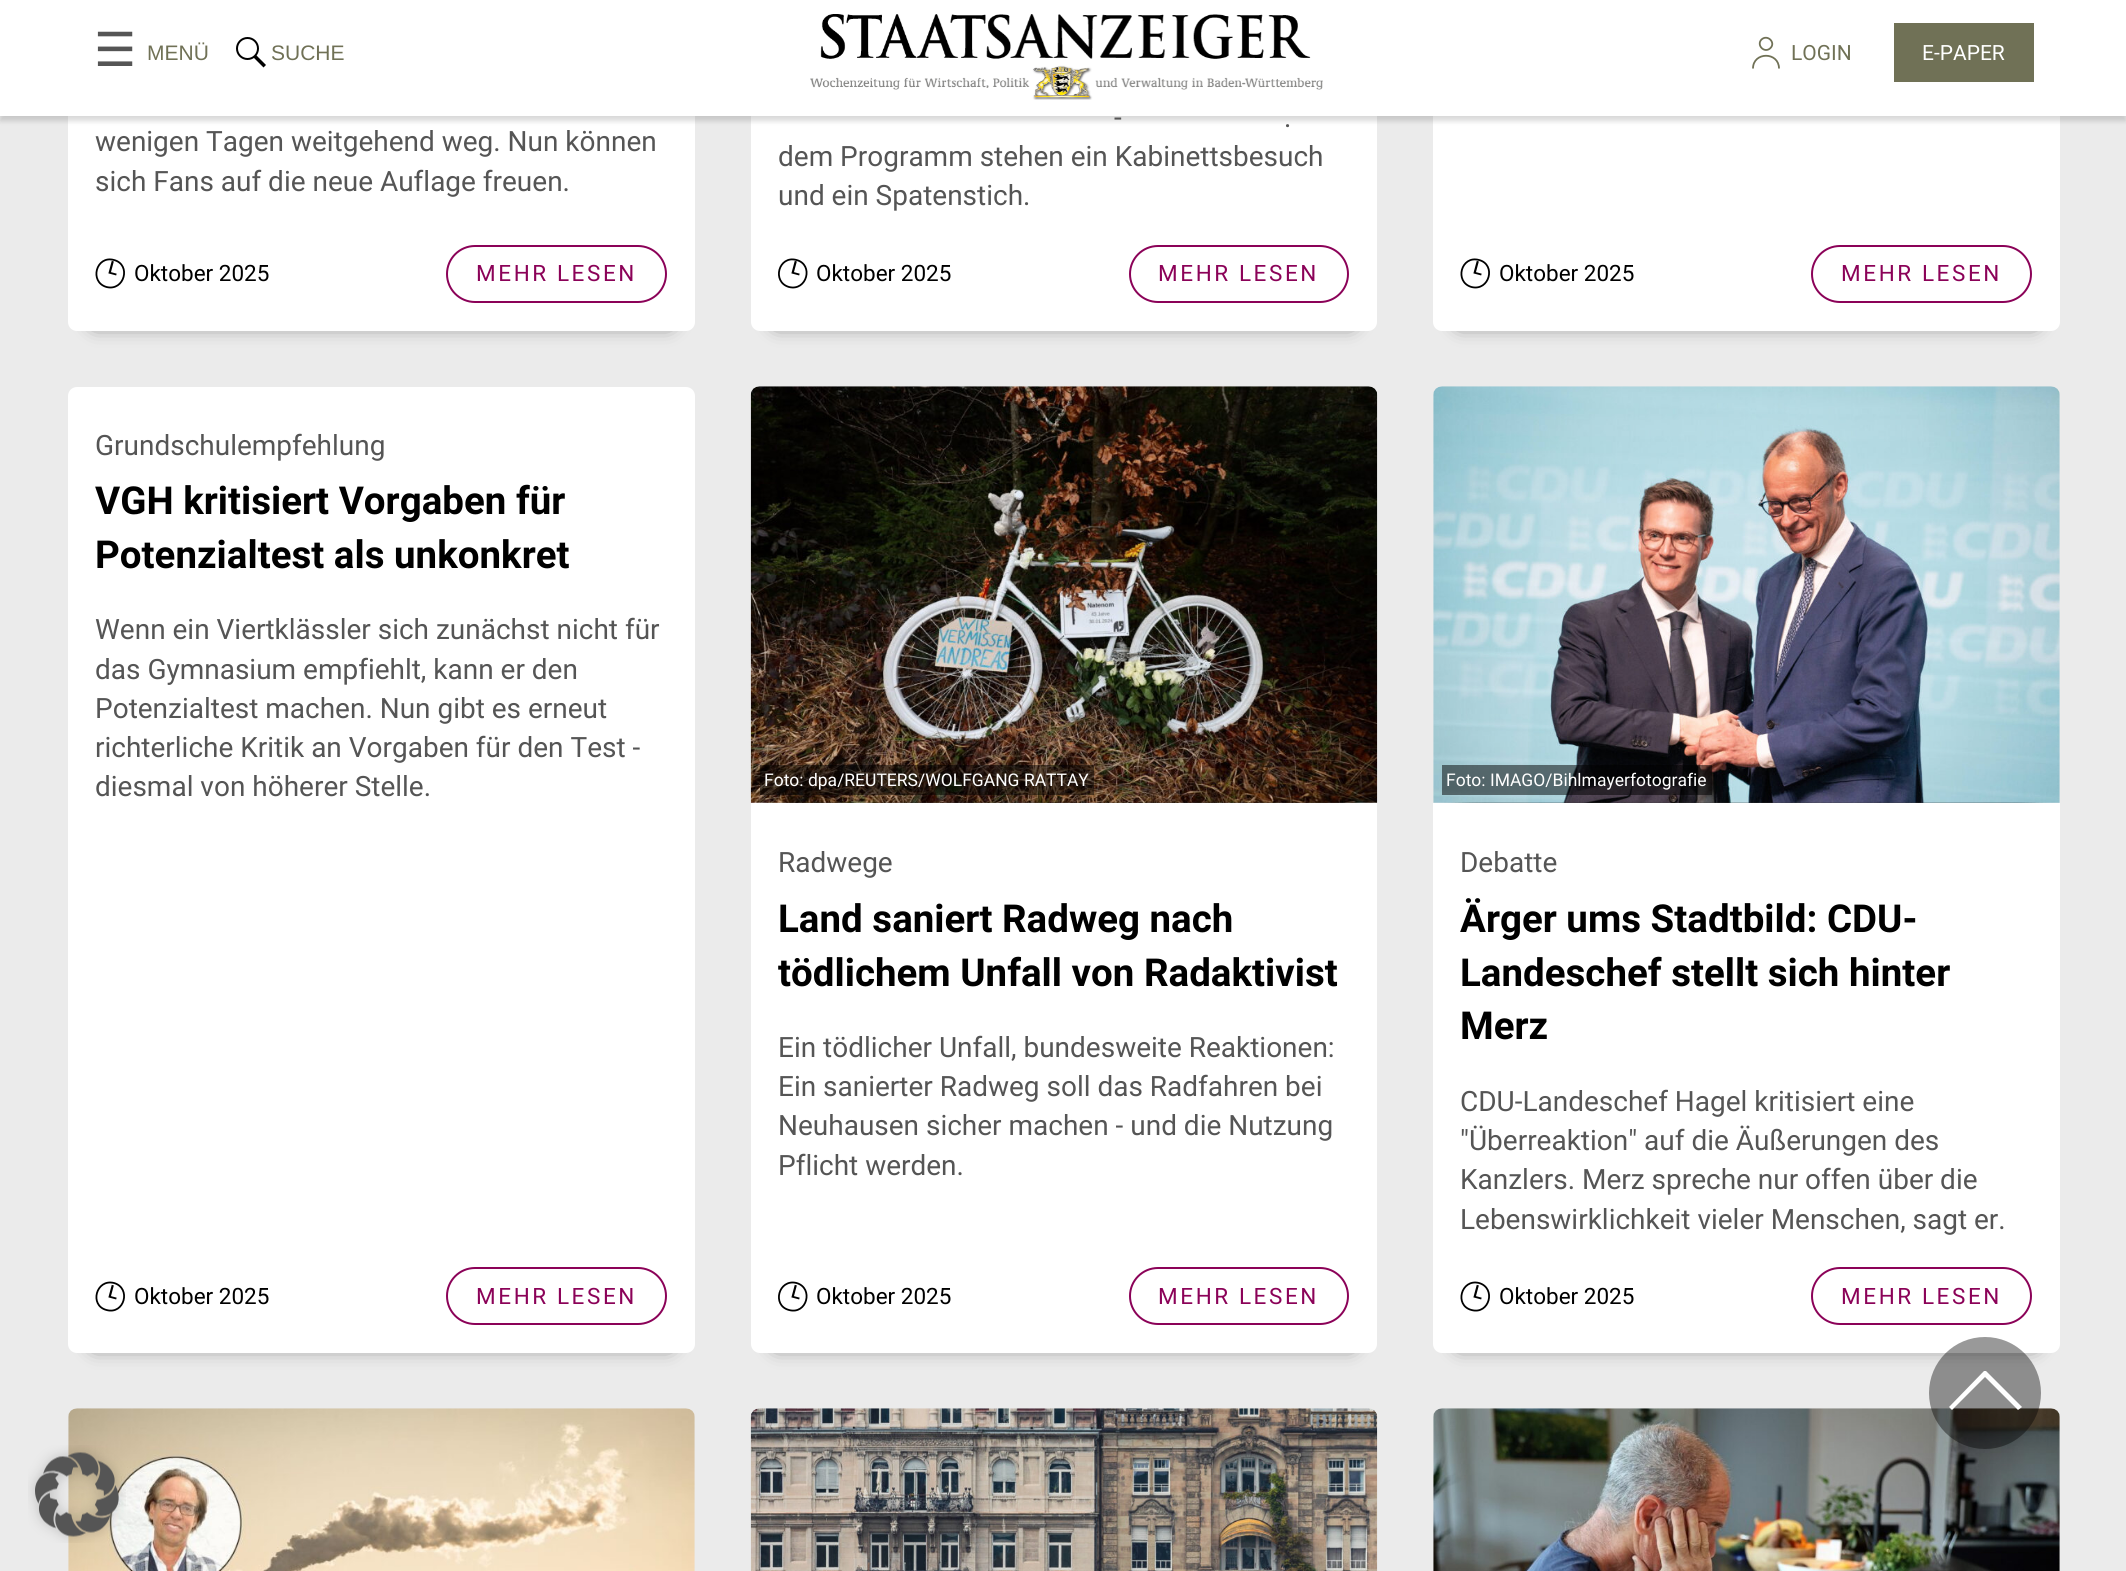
import math
import cairo

surface = cairo.ImageSurface(cairo.Format.RGB24, 2126, 1571)
ctx = cairo.Context(surface)
options = cairo.FontOptions()
options.set_hint_metrics(cairo.HintMetrics.OFF)
options.set_hint_style(cairo.HintStyle.NONE)
ctx.set_font_options(options)
ctx.set_miter_limit(4)


def ink(r, g, b):
    ctx.set_source_rgb(r / 255, g / 255, b / 255)


def write(x, y, s, family, size, color, bold=False, italic=False):
    ctx.select_font_face(family, cairo.FontSlant.ITALIC if italic else cairo.FontSlant.NORMAL, cairo.FontWeight.BOLD if bold else cairo.FontWeight.NORMAL)
    ctx.set_font_size(size)
    ink(*color)
    ctx.move_to(x, y)
    ctx.show_text(s)


def write_spaced(x, y, s, letter, word):
    ctx.move_to(x, y)
    for ch in s:
        ctx.show_text(ch)
        ctx.rel_move_to(letter + word * (ch == ' '), 0)


def block(x, y, w, h, *color):
    ink(*color)
    ctx.rectangle(x, y, w, h)
    ctx.fill()


def round_path(x, y, w, h, r):
    ctx.new_sub_path()
    for i, (u, v) in enumerate([(x + w - r, y + h - r), (x + r, y + h - r), (x + r, y + r), (x + w - r, y + r)]):
        ctx.arc(u, v, r, i * math.pi / 2, (i + 1) * math.pi / 2)
    ctx.close_path()


def blur_box(x, y, w, h, r, blur, alpha):
    ctx.push_group_with_content(cairo.Content.ALPHA)
    ctx.set_operator(cairo.Operator.SOURCE)
    for i in range(15, -16, -2):
        e = blur * i / 6
        if min(w, h) + 2 * e > 0:
            ctx.set_source_rgba(0, 0, 0, alpha * math.erfc((i - 1) / 8.5) / 2)
            round_path(x - e, y - e, w + 2 * e, h + 2 * e, max(0, min(r + e + blur * .6, min(w, h) / 2 + e)))
            ctx.fill()
    ctx.mask(ctx.pop_group())


def paste(path, x, y, w, h):
    ctx.save()
    ctx.set_source_surface(cairo.ImageSurface.create_from_png(path), x, y)
    ctx.rectangle(x, y, w, h)
    ctx.fill()
    ctx.restore()


s1 = dict(family="DejaVu Sans", size=47, color=(85, 85, 85))
s2 = dict(family="Liberation Sans", size=21, color=(112, 113, 86))
s3 = dict(family="Roboto", size=21, color=(112, 113, 86))
s4 = dict(family="Roboto", size=21, color=(255, 255, 255))
s5 = dict(family="Roboto", size=28, color=(85, 85, 85))
s6 = dict(family="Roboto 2", size=17.5, color=(0, 0, 0), bold=True)
s7 = dict(family="Roboto", size=22.5, color=(0, 0, 0))
s8 = dict(family="Roboto", size=38.5, color=(0, 0, 0), bold=True)
s9 = dict(family="Roboto", size=17.5, color=(255, 255, 255))

ink(235, 235, 235)
ctx.paint()
ink(0, 0, 0)
blur_box(95, -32, 574, 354, 0, 10.5, 0.75)
ink(255, 255, 255)
ctx.new_path()
ctx.move_to(68, -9)
ctx.line_to(695, -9)
ctx.line_to(695, 322)
ctx.curve_to(695, 327, 691, 331, 686, 331)
ctx.line_to(77, 331)
ctx.curve_to(72, 331, 68, 327, 68, 322)
ctx.close_path()
ctx.fill()
ink(0, 0, 0)
blur_box(777, -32, 574, 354, 0, 10.5, 0.75)
ink(255, 255, 255)
ctx.new_path()
ctx.move_to(751, -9)
ctx.line_to(1377, -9)
ctx.line_to(1377, 322)
ctx.curve_to(1377, 327, 1373, 331, 1368, 331)
ctx.line_to(760, 331)
ctx.curve_to(755, 331, 751, 327, 751, 322)
ctx.close_path()
ctx.fill()
ink(0, 0, 0)
blur_box(1460, -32, 574, 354, 0, 10.5, 0.75)
ink(255, 255, 255)
ctx.new_path()
ctx.move_to(1433, -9)
ctx.line_to(2060, -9)
ctx.line_to(2060, 322)
ctx.curve_to(2060, 327, 2056, 331, 2051, 331)
ctx.line_to(1442, 331)
ctx.curve_to(1437, 331, 1433, 327, 1433, 322)
ctx.close_path()
ctx.fill()
ink(0, 0, 0)
blur_box(0, 5, 2126, 116, 0, 2.5, 0.15)
block(0, 0, 2126, 116, 255, 255, 255)
write(94, 66, "☰", **s1)
write(147, 60, "MENÜ", **s2)
ctx.new_path()
ctx.arc(247.5, 48.5, 10.5, 0, 2 * math.pi)
ink(0, 0, 0)
ctx.stroke()
ctx.new_path()
ctx.move_to(253.5, 57.5)
ctx.line_to(256, 55)
ctx.line_to(266, 65)
ctx.line_to(263.5, 67.5)
ctx.close_path()
ctx.fill()
write(271, 60, "SUCHE", **s2)
paste("pic1.png", 810, 14, 513, 86)
ctx.new_path()
ctx.move_to(1753, 68.5)
ctx.curve_to(1753, 51.5, 1779, 51.5, 1779, 68.5)
ctx.move_to(1761.5, 39.5)
ctx.curve_to(1767.5, 34, 1776, 42.5, 1770.5, 48)
ctx.curve_to(1764.5, 54, 1756, 45, 1761.5, 39.5)
ctx.close_path()
ctx.set_line_width(1.8)
ctx.stroke()
write(1791, 60, "LOGIN", **s3)
block(1894, 23, 140, 59, 112, 113, 86)
write(1922, 60, "E-PAPER", **s4)
write(95, 151, "wenigen Tagen weitgehend weg. Nun können", **s5)
write(95, 191, "sich Fans auf die neue Auflage freuen.", **s5)
ctx.new_path()
ctx.move_to(114, 260)
ctx.curve_to(131.5, 264.5, 124.5, 291.5, 106.5, 287)
ctx.curve_to(89, 282, 96, 255, 114, 260)
ctx.close_path()
ink(0, 0, 0)
ctx.stroke()
ctx.save()
ctx.translate(107, 273)
ctx.rotate(15 * math.pi / 180)
write(0, 0, "L", **s6)
ctx.restore()
write(134, 281, "Oktober 2025", **s7)
round_path(447, 246, 219, 56, 28)
ink(139, 2, 88)
ctx.set_line_width(2)
ctx.stroke()
write_spaced(476, 281, "MEHR LESEN", 2.6, 0)
write(1114, 127, "-", **s5)
write(1284, 127, ".", **s5)
write(778, 166, "dem Programm stehen ein Kabinettsbesuch", **s5)
write(778, 205, "und ein Spatenstich.", **s5)
ctx.new_path()
ctx.move_to(796.5, 260)
ctx.curve_to(814, 264.5, 807, 291.5, 789, 287)
ctx.curve_to(771.5, 282, 778.5, 255, 796.5, 260)
ctx.close_path()
ink(0, 0, 0)
ctx.set_line_width(1.8)
ctx.stroke()
ctx.save()
ctx.translate(790, 273)
ctx.rotate(15 * math.pi / 180)
write(0, 0, "L", **s6)
ctx.restore()
write(816, 281, "Oktober 2025", **s7)
round_path(1130, 246, 218, 56, 28)
ink(139, 2, 88)
ctx.set_line_width(2)
ctx.stroke()
write_spaced(1158, 281, "MEHR LESEN", 2.6, 0)
ctx.new_path()
ctx.move_to(1479, 260)
ctx.curve_to(1496.5, 264.5, 1489.5, 291.5, 1471.5, 287)
ctx.curve_to(1454, 282, 1461, 255, 1479, 260)
ctx.close_path()
ink(0, 0, 0)
ctx.set_line_width(1.8)
ctx.stroke()
ctx.save()
ctx.translate(1472, 273)
ctx.rotate(15 * math.pi / 180)
write(0, 0, "L", **s6)
ctx.restore()
write(1499, 281, "Oktober 2025", **s7)
round_path(1812, 246, 219, 56, 28)
ink(139, 2, 88)
ctx.set_line_width(2)
ctx.stroke()
write_spaced(1841, 281, "MEHR LESEN", 2.6, 0)
ink(0, 0, 0)
blur_box(95, 431, 574, 913, 0, 10.5, 0.75)
ink(255, 255, 255)
round_path(68, 387, 627, 966, 9)
ctx.fill()
write(95, 455, "Grundschulempfehlung", **s5)
write(95, 514, "VGH kritisiert Vorgaben für", **s8)
write(95, 568, "Potenzialtest als unkonkret", **s8)
write(95, 639, "Wenn ein Viertklässler sich zunächst nicht für", **s5)
write(95, 679, "das Gymnasium empfiehlt, kann er den", **s5)
write(95, 718, "Potenzialtest machen. Nun gibt es erneut", **s5)
write(95, 757, "richterliche Kritik an Vorgaben für den Test -", **s5)
write(95, 796, "diesmal von höherer Stelle.", **s5)
ctx.new_path()
ctx.move_to(114, 1283)
ctx.curve_to(131.5, 1288, 124.5, 1315, 106.5, 1310)
ctx.curve_to(89, 1305.5, 96, 1278.5, 114, 1283)
ctx.close_path()
ink(0, 0, 0)
ctx.set_line_width(1.8)
ctx.stroke()
ctx.save()
ctx.translate(107, 1297)
ctx.rotate(15 * math.pi / 180)
write(0, 0, "L", **s6)
ctx.restore()
write(134, 1304, "Oktober 2025", **s7)
round_path(447, 1268, 219, 56, 28)
ink(139, 2, 88)
ctx.set_line_width(2)
ctx.stroke()
write_spaced(476, 1304, "MEHR LESEN", 2.6, 0)
ink(0, 0, 0)
blur_box(777, 431, 574, 913, 0, 10.5, 0.75)
paste("pic2.png", 750, 386, 628, 417)
ctx.set_source_rgba(0, 0, 0, 0.5)
ctx.rectangle(760, 765, 334, 30)
ctx.fill()
write(764, 786, "Foto: dpa/REUTERS/WOLFGANG RATTAY", **s9)
ctx.new_path()
ctx.move_to(751, 803)
ctx.line_to(1377, 803)
ctx.line_to(1377, 1344)
ctx.curve_to(1377, 1349, 1373, 1353, 1368, 1353)
ctx.line_to(760, 1353)
ctx.curve_to(755, 1353, 751, 1349, 751, 1344)
ctx.close_path()
ctx.fill()
write(778, 872, "Radwege", **s5)
write(778, 932, "Land saniert Radweg nach", **s8)
write(778, 986, "tödlichem Unfall von Radaktivist", **s8)
write(778, 1057, "Ein tödlicher Unfall, bundesweite Reaktionen:", **s5)
write(778, 1096, "Ein sanierter Radweg soll das Radfahren bei", **s5)
write(778, 1135, "Neuhausen sicher machen - und die Nutzung", **s5)
write(778, 1175, "Pflicht werden.", **s5)
ctx.new_path()
ctx.move_to(796.5, 1283)
ctx.curve_to(814, 1288, 807, 1315, 789, 1310)
ctx.curve_to(771.5, 1305.5, 778.5, 1278.5, 796.5, 1283)
ctx.close_path()
ink(0, 0, 0)
ctx.set_line_width(1.8)
ctx.stroke()
ctx.save()
ctx.translate(790, 1297)
ctx.rotate(15 * math.pi / 180)
write(0, 0, "L", **s6)
ctx.restore()
write(816, 1304, "Oktober 2025", **s7)
round_path(1130, 1268, 218, 56, 28)
ink(139, 2, 88)
ctx.set_line_width(2)
ctx.stroke()
write_spaced(1158, 1304, "MEHR LESEN", 2.6, 0)
ink(0, 0, 0)
blur_box(1460, 431, 574, 913, 0, 10.5, 0.75)
paste("pic3.png", 1433, 386, 627, 417)
ctx.set_source_rgba(0, 0, 0, 0.5)
ctx.rectangle(1442, 765, 270, 30)
ctx.fill()
write(1446, 786, "Foto: IMAGO/Bihlmayerfotografie", **s9)
ctx.new_path()
ctx.move_to(1433, 803)
ctx.line_to(2060, 803)
ctx.line_to(2060, 1344)
ctx.curve_to(2060, 1349, 2056, 1353, 2051, 1353)
ctx.line_to(1442, 1353)
ctx.curve_to(1437, 1353, 1433, 1349, 1433, 1344)
ctx.close_path()
ctx.fill()
write(1460, 872, "Debatte", **s5)
write(1460, 932, "Ärger ums Stadtbild: CDU-", **s8)
write(1460, 986, "Landeschef stellt sich hinter", **s8)
write(1460, 1039, "Merz", **s8)
write(1460, 1111, "CDU-Landeschef Hagel kritisiert eine", **s5)
write(1460, 1150, "\"Überreaktion\" auf die Äußerungen des", **s5)
write(1460, 1189, "Kanzlers. Merz spreche nur offen über die", **s5)
write(1460, 1229, "Lebenswirklichkeit vieler Menschen, sagt er.", **s5)
ctx.new_path()
ctx.move_to(1479, 1283)
ctx.curve_to(1496.5, 1288, 1489.5, 1315, 1471.5, 1310)
ctx.curve_to(1454, 1305.5, 1461, 1278.5, 1479, 1283)
ctx.close_path()
ink(0, 0, 0)
ctx.set_line_width(1.8)
ctx.stroke()
ctx.save()
ctx.translate(1472, 1297)
ctx.rotate(15 * math.pi / 180)
write(0, 0, "L", **s6)
ctx.restore()
write(1499, 1304, "Oktober 2025", **s7)
round_path(1812, 1268, 219, 56, 28)
ink(139, 2, 88)
ctx.set_line_width(2)
ctx.stroke()
write_spaced(1841, 1304, "MEHR LESEN", 2.6, 0)
paste("pic4.png", 68, 1408, 627, 163)
paste("pic5.png", 750, 1408, 628, 163)
paste("pic6.png", 1433, 1408, 627, 163)
ctx.set_source_rgba(0, 0, 0, 0.4)
ctx.new_path()
ctx.move_to(1929, 1393)
ctx.curve_to(1929, 1362, 1954, 1337, 1985, 1337)
ctx.curve_to(2016, 1337, 2041, 1362, 2041, 1393)
ctx.curve_to(2041, 1424, 2016, 1449, 1985, 1449)
ctx.curve_to(1954, 1449, 1929, 1424, 1929, 1393)
ctx.close_path()
ctx.fill()
ink(255, 255, 255)
ctx.new_path()
ctx.move_to(1986, 1371)
ctx.line_to(1984, 1371)
ctx.line_to(1949, 1407)
ctx.line_to(1952, 1410)
ctx.line_to(1985, 1377)
ctx.line_to(2018, 1410)
ctx.line_to(2022, 1407)
ctx.close_path()
ctx.fill()
paste("pic7.png", 28, 1445, 98, 98)
surface.write_to_png("screenshot.png")
